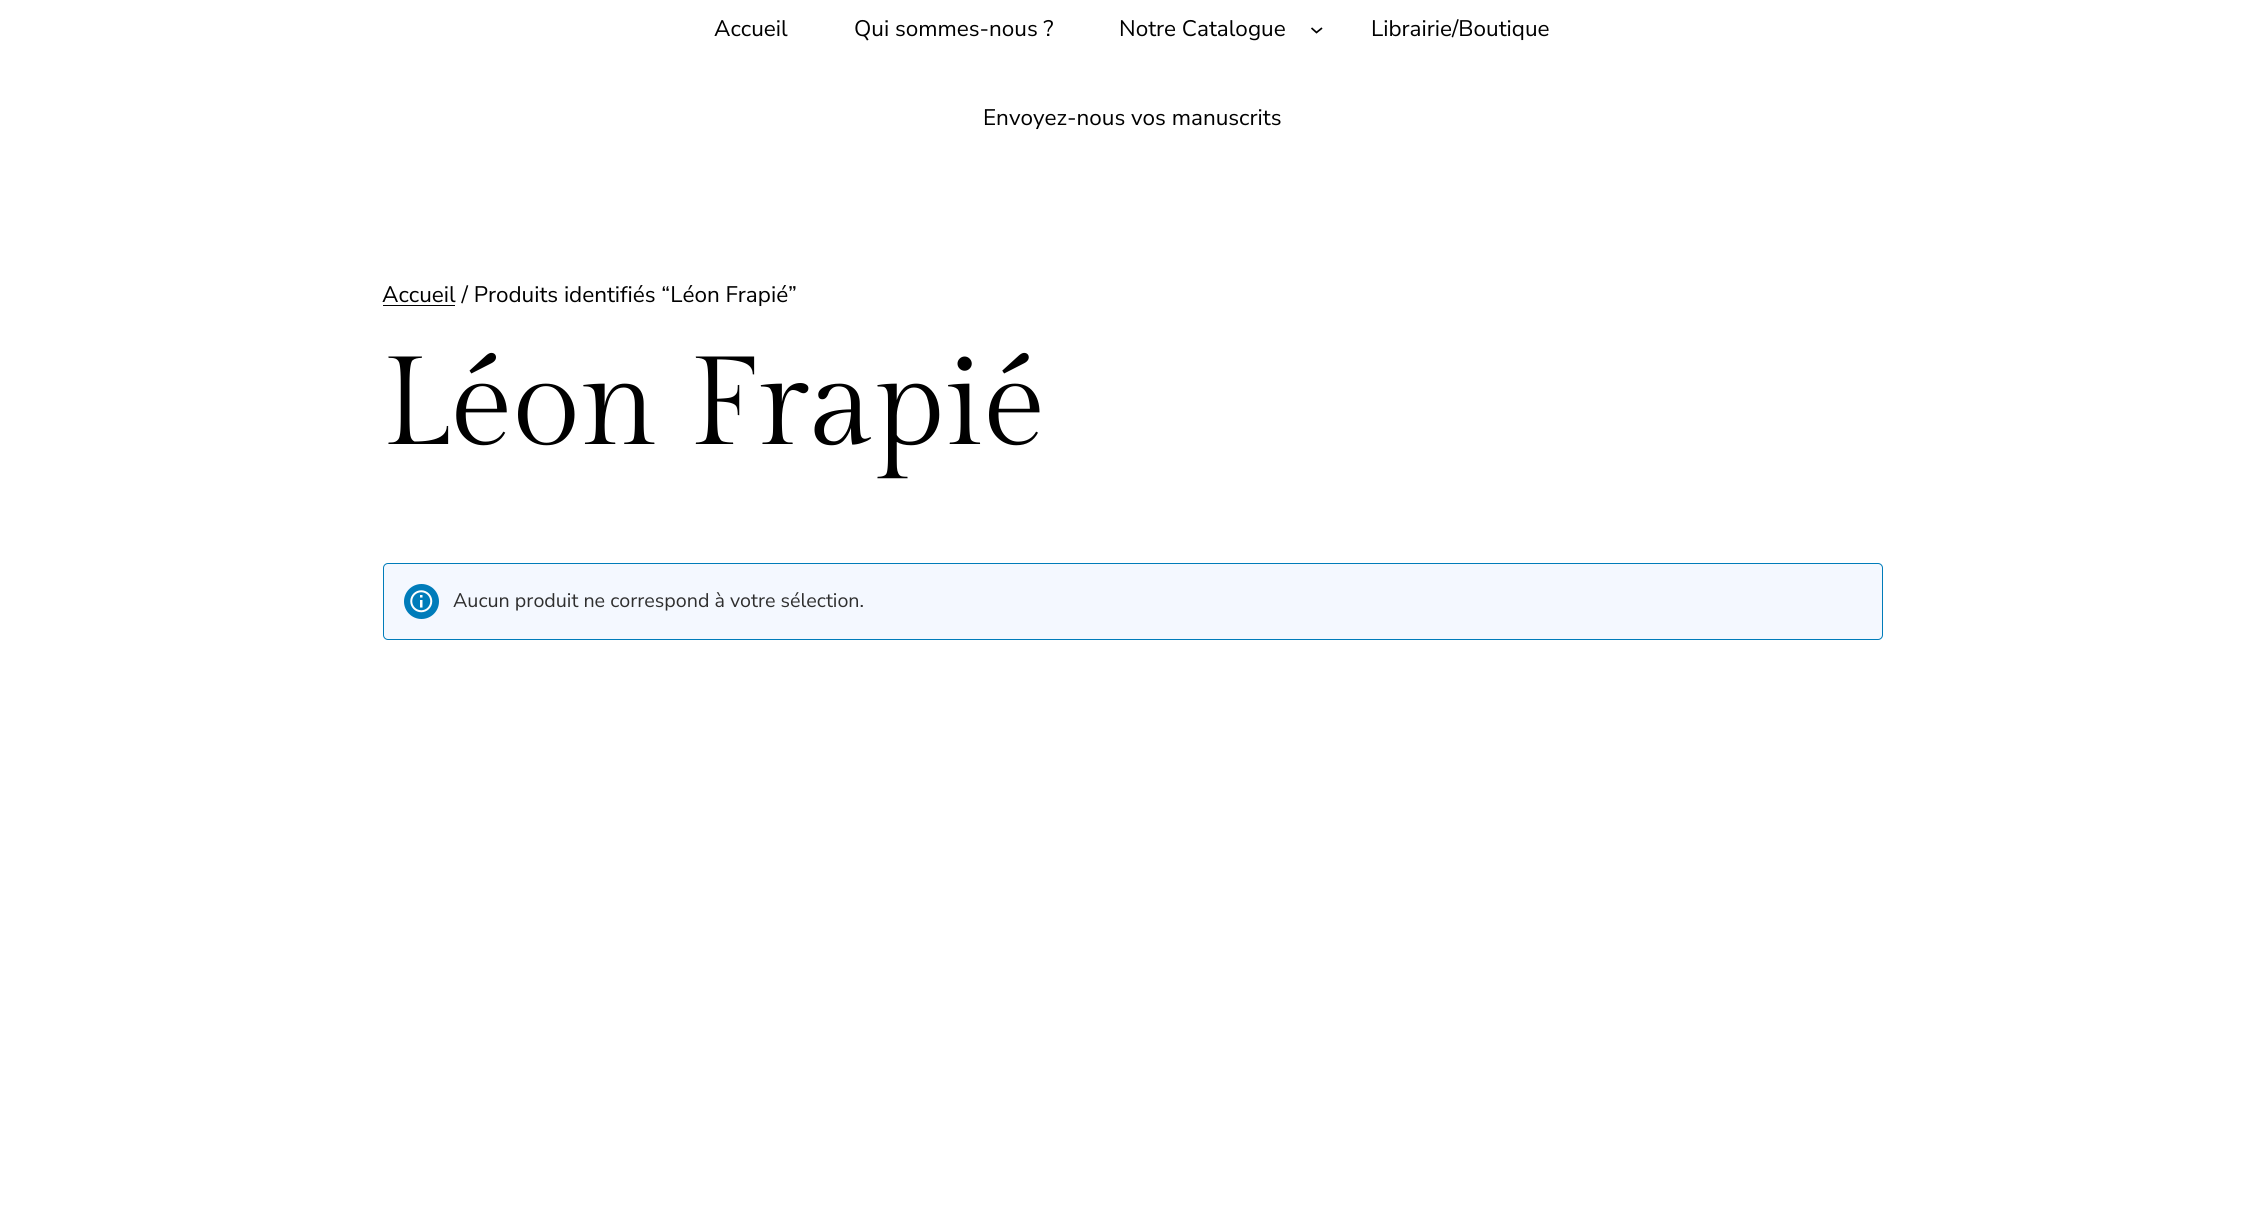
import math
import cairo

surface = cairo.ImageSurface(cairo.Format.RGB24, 2263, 1212)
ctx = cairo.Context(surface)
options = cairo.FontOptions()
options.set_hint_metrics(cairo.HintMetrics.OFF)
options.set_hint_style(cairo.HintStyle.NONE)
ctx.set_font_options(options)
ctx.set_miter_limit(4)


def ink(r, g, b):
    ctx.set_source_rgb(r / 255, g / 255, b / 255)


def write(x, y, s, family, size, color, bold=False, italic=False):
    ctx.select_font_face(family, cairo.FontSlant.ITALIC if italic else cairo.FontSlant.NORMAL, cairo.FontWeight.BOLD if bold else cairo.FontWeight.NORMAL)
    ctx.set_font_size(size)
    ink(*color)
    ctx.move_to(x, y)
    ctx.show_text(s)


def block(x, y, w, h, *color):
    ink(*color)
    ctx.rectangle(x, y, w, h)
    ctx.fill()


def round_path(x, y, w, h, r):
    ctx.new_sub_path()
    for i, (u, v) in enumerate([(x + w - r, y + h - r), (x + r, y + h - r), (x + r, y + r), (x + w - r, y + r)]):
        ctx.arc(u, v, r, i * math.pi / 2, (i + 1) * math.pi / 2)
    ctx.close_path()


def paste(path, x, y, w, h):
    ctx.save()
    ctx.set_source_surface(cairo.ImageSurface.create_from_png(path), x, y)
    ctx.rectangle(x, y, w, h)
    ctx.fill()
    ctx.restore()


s1 = dict(family="Nunito Sans", size=22.5, color=(0, 0, 0))
s2 = dict(family="Gilda Display", size=125, color=(0, 0, 0))
s3 = dict(family="Nunito Sans", size=19.7, color=(47, 47, 47))

ink(255, 255, 255)
ctx.paint()
write(714, 36, "Accueil", **s1)
write(854, 36, "Qui sommes-nous ?", **s1)
write(1119, 36, "Notre Catalogue", **s1)
ctx.new_path()
ctx.move_to(1311.5, 28)
ctx.line_to(1316.5, 32.5)
ctx.line_to(1322, 28)
ctx.set_line_width(1.7)
ctx.stroke()
write(1371, 36, "Librairie/Boutique", **s1)
write(983, 125, "Envoyez-nous vos manuscrits", **s1)
block(383, 305, 72, 1, 0, 0, 0)
write(382, 302, "Accueil / Produits identifiés “Léon Frapié”", **s1)
write(382, 444, "Léon Frapié", **s2)
ink(244, 248, 255)
round_path(383.5, 563.5, 1499, 76, 4.5)
ctx.fill_preserve()
ink(0, 124, 186)
ctx.set_line_width(1)
ctx.stroke()
ctx.arc(421.5, 601.5, 17.5, 0, 2 * math.pi)
ctx.fill()
paste("pic1.png", 410, 590, 23, 23)
write(453, 607, "Aucun produit ne correspond à votre sélection.", **s3)
surface.write_to_png("screenshot.png")
